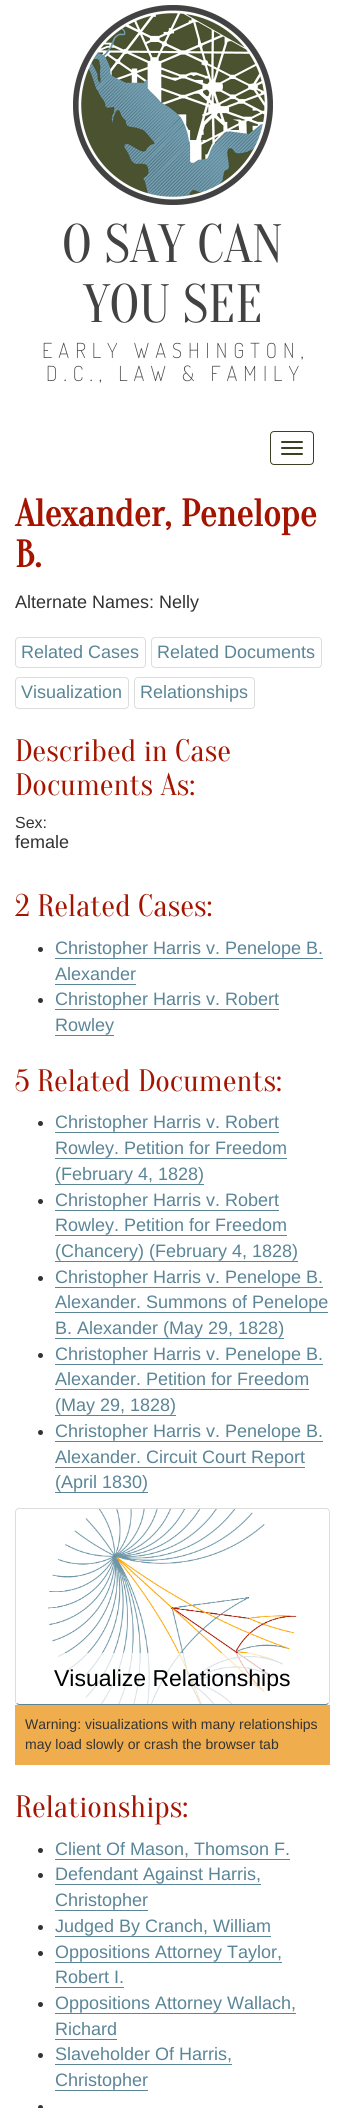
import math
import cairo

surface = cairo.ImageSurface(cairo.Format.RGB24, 345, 2108)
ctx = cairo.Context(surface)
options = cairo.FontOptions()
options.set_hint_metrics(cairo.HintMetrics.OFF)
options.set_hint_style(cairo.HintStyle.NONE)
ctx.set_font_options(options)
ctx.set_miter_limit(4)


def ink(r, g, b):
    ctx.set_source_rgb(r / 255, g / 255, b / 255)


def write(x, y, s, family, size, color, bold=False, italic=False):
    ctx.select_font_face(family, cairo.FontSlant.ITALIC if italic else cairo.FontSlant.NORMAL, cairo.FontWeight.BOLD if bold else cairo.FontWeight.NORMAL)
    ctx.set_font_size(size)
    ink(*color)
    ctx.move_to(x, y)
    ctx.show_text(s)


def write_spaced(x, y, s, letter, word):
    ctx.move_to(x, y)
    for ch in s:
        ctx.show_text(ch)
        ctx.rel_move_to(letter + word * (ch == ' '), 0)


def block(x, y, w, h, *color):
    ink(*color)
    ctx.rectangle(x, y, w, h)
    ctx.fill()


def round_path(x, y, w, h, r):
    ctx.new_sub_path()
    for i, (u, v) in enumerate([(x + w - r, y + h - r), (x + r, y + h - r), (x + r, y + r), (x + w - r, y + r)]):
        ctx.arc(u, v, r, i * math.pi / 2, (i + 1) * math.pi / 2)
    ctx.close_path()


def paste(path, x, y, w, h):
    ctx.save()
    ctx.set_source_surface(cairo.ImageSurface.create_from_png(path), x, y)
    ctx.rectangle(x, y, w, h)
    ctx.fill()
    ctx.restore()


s1 = dict(family="Oranienbaum", size=54, color=(66, 66, 66))
s2 = dict(family="Oranienbaum", size=38, color=(165, 20, 0), bold=True)
s3 = dict(family="Liberation Sans", size=18, color=(51, 51, 51))
s4 = dict(family="Liberation Sans", size=18, color=(90, 133, 151))
s5 = dict(family="Oranienbaum", size=31, color=(165, 20, 0))
s6 = dict(family="Liberation Sans", size=16, color=(51, 51, 51))
s7 = dict(family="Liberation Sans", size=23, color=(0, 0, 0))
s8 = dict(family="Liberation Sans", size=14, color=(51, 51, 51))

ink(255, 255, 255)
ctx.paint()
paste("pic1.png", 73, 5, 200, 200)
write(62, 262, "O SAY CAN", **s1)
write(83, 322, "YOU SEE", **s1)
ctx.select_font_face("Dosis ExtraLight")
ctx.set_font_size(20.75)
write_spaced(42, 358, "EARLY WASHINGTON,", 6, 0)
write_spaced(46, 381, "D.C., LAW & FAMILY", 6, 0)
round_path(270.5, 431.5, 43, 33, 3.5)
ink(58, 65, 35)
ctx.set_line_width(1)
ctx.stroke()
round_path(281, 441, 22, 2, 1)
ctx.fill()
round_path(281, 447, 22, 2, 1)
ctx.fill()
round_path(281, 453, 22, 2, 1)
ctx.fill()
write(15, 526, "Alexander, Penelope", **s2)
write(15, 567, "B.", **s2)
write(15, 608, "Alternate Names: Nelly", **s3)
round_path(15.5, 637.5, 130, 30, 3.5)
ink(221, 221, 221)
ctx.stroke()
write(21, 658, "Related Cases", **s4)
round_path(151.5, 637.5, 170, 30, 3.5)
ink(221, 221, 221)
ctx.stroke()
write(157, 658, "Related Documents", **s4)
round_path(15.5, 677.5, 113, 31, 3.5)
ink(221, 221, 221)
ctx.stroke()
write(21, 698, "Visualization", **s4)
round_path(134.5, 677.5, 120, 31, 3.5)
ink(221, 221, 221)
ctx.stroke()
write(140, 698, "Relationships", **s4)
write(15, 761, "Described in Case", **s5)
write(15, 795, "Documents As:", **s5)
write(15, 828, "Sex:", **s6)
write(15, 848, "female", **s3)
write(15, 916, "2 Related Cases:", **s5)
ink(51, 51, 51)
ctx.new_path()
ctx.arc(40.5, 949.5, 2.5, 0, 2 * math.pi)
ctx.fill()
write(55, 954, "Christopher Harris v. Penelope B.", **s4)
block(55, 958, 268, 1, 90, 133, 151)
write(55, 980, "Alexander", **s4)
block(55, 984, 81, 1, 90, 133, 151)
ink(51, 51, 51)
ctx.new_path()
ctx.arc(40.5, 1000.5, 2.5, 0, 2 * math.pi)
ctx.fill()
write(55, 1005, "Christopher Harris v. Robert", **s4)
block(55, 1009, 224, 1, 90, 133, 151)
write(55, 1031, "Rowley", **s4)
block(55, 1035, 59, 1, 90, 133, 151)
write(15, 1091, "5 Related Documents:", **s5)
ink(51, 51, 51)
ctx.new_path()
ctx.arc(40.5, 1123.5, 2.5, 0, 2 * math.pi)
ctx.fill()
write(55, 1128, "Christopher Harris v. Robert", **s4)
block(55, 1132, 224, 1, 90, 133, 151)
write(55, 1154, "Rowley. Petition for Freedom", **s4)
block(55, 1158, 232, 1, 90, 133, 151)
write(55, 1180, "(February 4, 1828)", **s4)
block(55, 1184, 149, 1, 90, 133, 151)
ink(51, 51, 51)
ctx.new_path()
ctx.arc(40.5, 1201.5, 2.5, 0, 2 * math.pi)
ctx.fill()
write(55, 1206, "Christopher Harris v. Robert", **s4)
block(55, 1210, 224, 1, 90, 133, 151)
write(55, 1231, "Rowley. Petition for Freedom", **s4)
block(55, 1235, 232, 1, 90, 133, 151)
write(55, 1257, "(Chancery) (February 4, 1828)", **s4)
block(55, 1261, 243, 1, 90, 133, 151)
ink(51, 51, 51)
ctx.new_path()
ctx.arc(40.5, 1278.5, 2.5, 0, 2 * math.pi)
ctx.fill()
write(55, 1283, "Christopher Harris v. Penelope B.", **s4)
block(55, 1287, 268, 1, 90, 133, 151)
write(55, 1308, "Alexander. Summons of Penelope", **s4)
block(55, 1312, 273, 1, 90, 133, 151)
write(55, 1334, "B. Alexander (May 29, 1828)", **s4)
block(55, 1338, 229, 1, 90, 133, 151)
ink(51, 51, 51)
ctx.new_path()
ctx.arc(40.5, 1355.5, 2.5, 0, 2 * math.pi)
ctx.fill()
write(55, 1360, "Christopher Harris v. Penelope B.", **s4)
block(55, 1364, 268, 1, 90, 133, 151)
write(55, 1385, "Alexander. Petition for Freedom", **s4)
block(55, 1389, 254, 1, 90, 133, 151)
write(55, 1411, "(May 29, 1828)", **s4)
block(55, 1415, 121, 1, 90, 133, 151)
ink(51, 51, 51)
ctx.new_path()
ctx.arc(40.5, 1432.5, 2.5, 0, 2 * math.pi)
ctx.fill()
write(55, 1437, "Christopher Harris v. Penelope B.", **s4)
block(55, 1441, 268, 1, 90, 133, 151)
write(55, 1463, "Alexander. Circuit Court Report", **s4)
block(55, 1467, 250, 1, 90, 133, 151)
write(55, 1488, "(April 1830)", **s4)
block(55, 1492, 93, 1, 90, 133, 151)
paste("pic2.png", 47, 1509, 250, 195)
ctx.new_path()
ctx.move_to(328.5, 1703.5)
ctx.line_to(326, 1704.5)
ctx.line_to(19, 1704.5)
ctx.line_to(16.5, 1703.5)
ctx.stroke()
ctx.new_path()
ctx.move_to(16.5, 1703.5)
ctx.curve_to(16, 1703, 15.5, 1702, 15.5, 1701)
ctx.line_to(15.5, 1512)
ctx.curve_to(15.5, 1511, 16, 1510, 16.5, 1509.5)
ctx.curve_to(17, 1509, 18, 1508.5, 19, 1508.5)
ctx.line_to(326, 1508.5)
ctx.curve_to(327, 1508.5, 328, 1509, 328.5, 1509.5)
ctx.curve_to(329, 1510, 329.5, 1511, 329.5, 1512)
ctx.line_to(329.5, 1701)
ctx.curve_to(329.5, 1702, 329, 1703, 328.5, 1703.5)
ink(221, 221, 221)
ctx.stroke()
ctx.set_source_rgba(1, 1, 1, 0.7)
round_path(16, 1653, 313, 51, 6)
ctx.fill()
write(54, 1686, "Visualize Relationships", **s7)
block(15, 1705, 315, 60, 240, 173, 78)
write(25, 1729, "Warning: visualizations with many relationships", **s8)
write(25, 1749, "may load slowly or crash the browser tab", **s8)
write(15, 1817, "Relationships:", **s5)
ink(51, 51, 51)
ctx.new_path()
ctx.arc(40.5, 1850.5, 2.5, 0, 2 * math.pi)
ctx.fill()
write(55, 1855, "Client Of Mason, Thomson F.", **s4)
block(55, 1859, 235, 1, 90, 133, 151)
ink(51, 51, 51)
ctx.new_path()
ctx.arc(40.5, 1875.5, 2.5, 0, 2 * math.pi)
ctx.fill()
write(55, 1880, "Defendant Against Harris,", **s4)
block(55, 1884, 206, 1, 90, 133, 151)
write(55, 1906, "Christopher", **s4)
block(55, 1910, 93, 1, 90, 133, 151)
ink(51, 51, 51)
ctx.new_path()
ctx.arc(40.5, 1927.5, 2.5, 0, 2 * math.pi)
ctx.fill()
write(55, 1932, "Judged By Cranch, William", **s4)
block(55, 1936, 216, 1, 90, 133, 151)
ink(51, 51, 51)
ctx.new_path()
ctx.arc(40.5, 1953.5, 2.5, 0, 2 * math.pi)
ctx.fill()
write(55, 1958, "Oppositions Attorney Taylor,", **s4)
block(55, 1962, 227, 1, 90, 133, 151)
write(55, 1983, "Robert I.", **s4)
block(55, 1987, 69, 1, 90, 133, 151)
ink(51, 51, 51)
ctx.new_path()
ctx.arc(40.5, 2004.5, 2.5, 0, 2 * math.pi)
ctx.fill()
write(55, 2009, "Oppositions Attorney Wallach,", **s4)
block(55, 2013, 241, 1, 90, 133, 151)
write(55, 2035, "Richard", **s4)
block(55, 2039, 62, 1, 90, 133, 151)
ink(51, 51, 51)
ctx.new_path()
ctx.arc(40.5, 2055.5, 2.5, 0, 2 * math.pi)
ctx.fill()
write(55, 2060, "Slaveholder Of Harris,", **s4)
block(55, 2064, 177, 1, 90, 133, 151)
write(55, 2086, "Christopher", **s4)
block(55, 2090, 93, 1, 90, 133, 151)
ink(51, 51, 51)
ctx.new_path()
ctx.arc(40.5, 2107.5, 2.5, 0, 2 * math.pi)
ctx.fill()
surface.write_to_png("screenshot.png")
